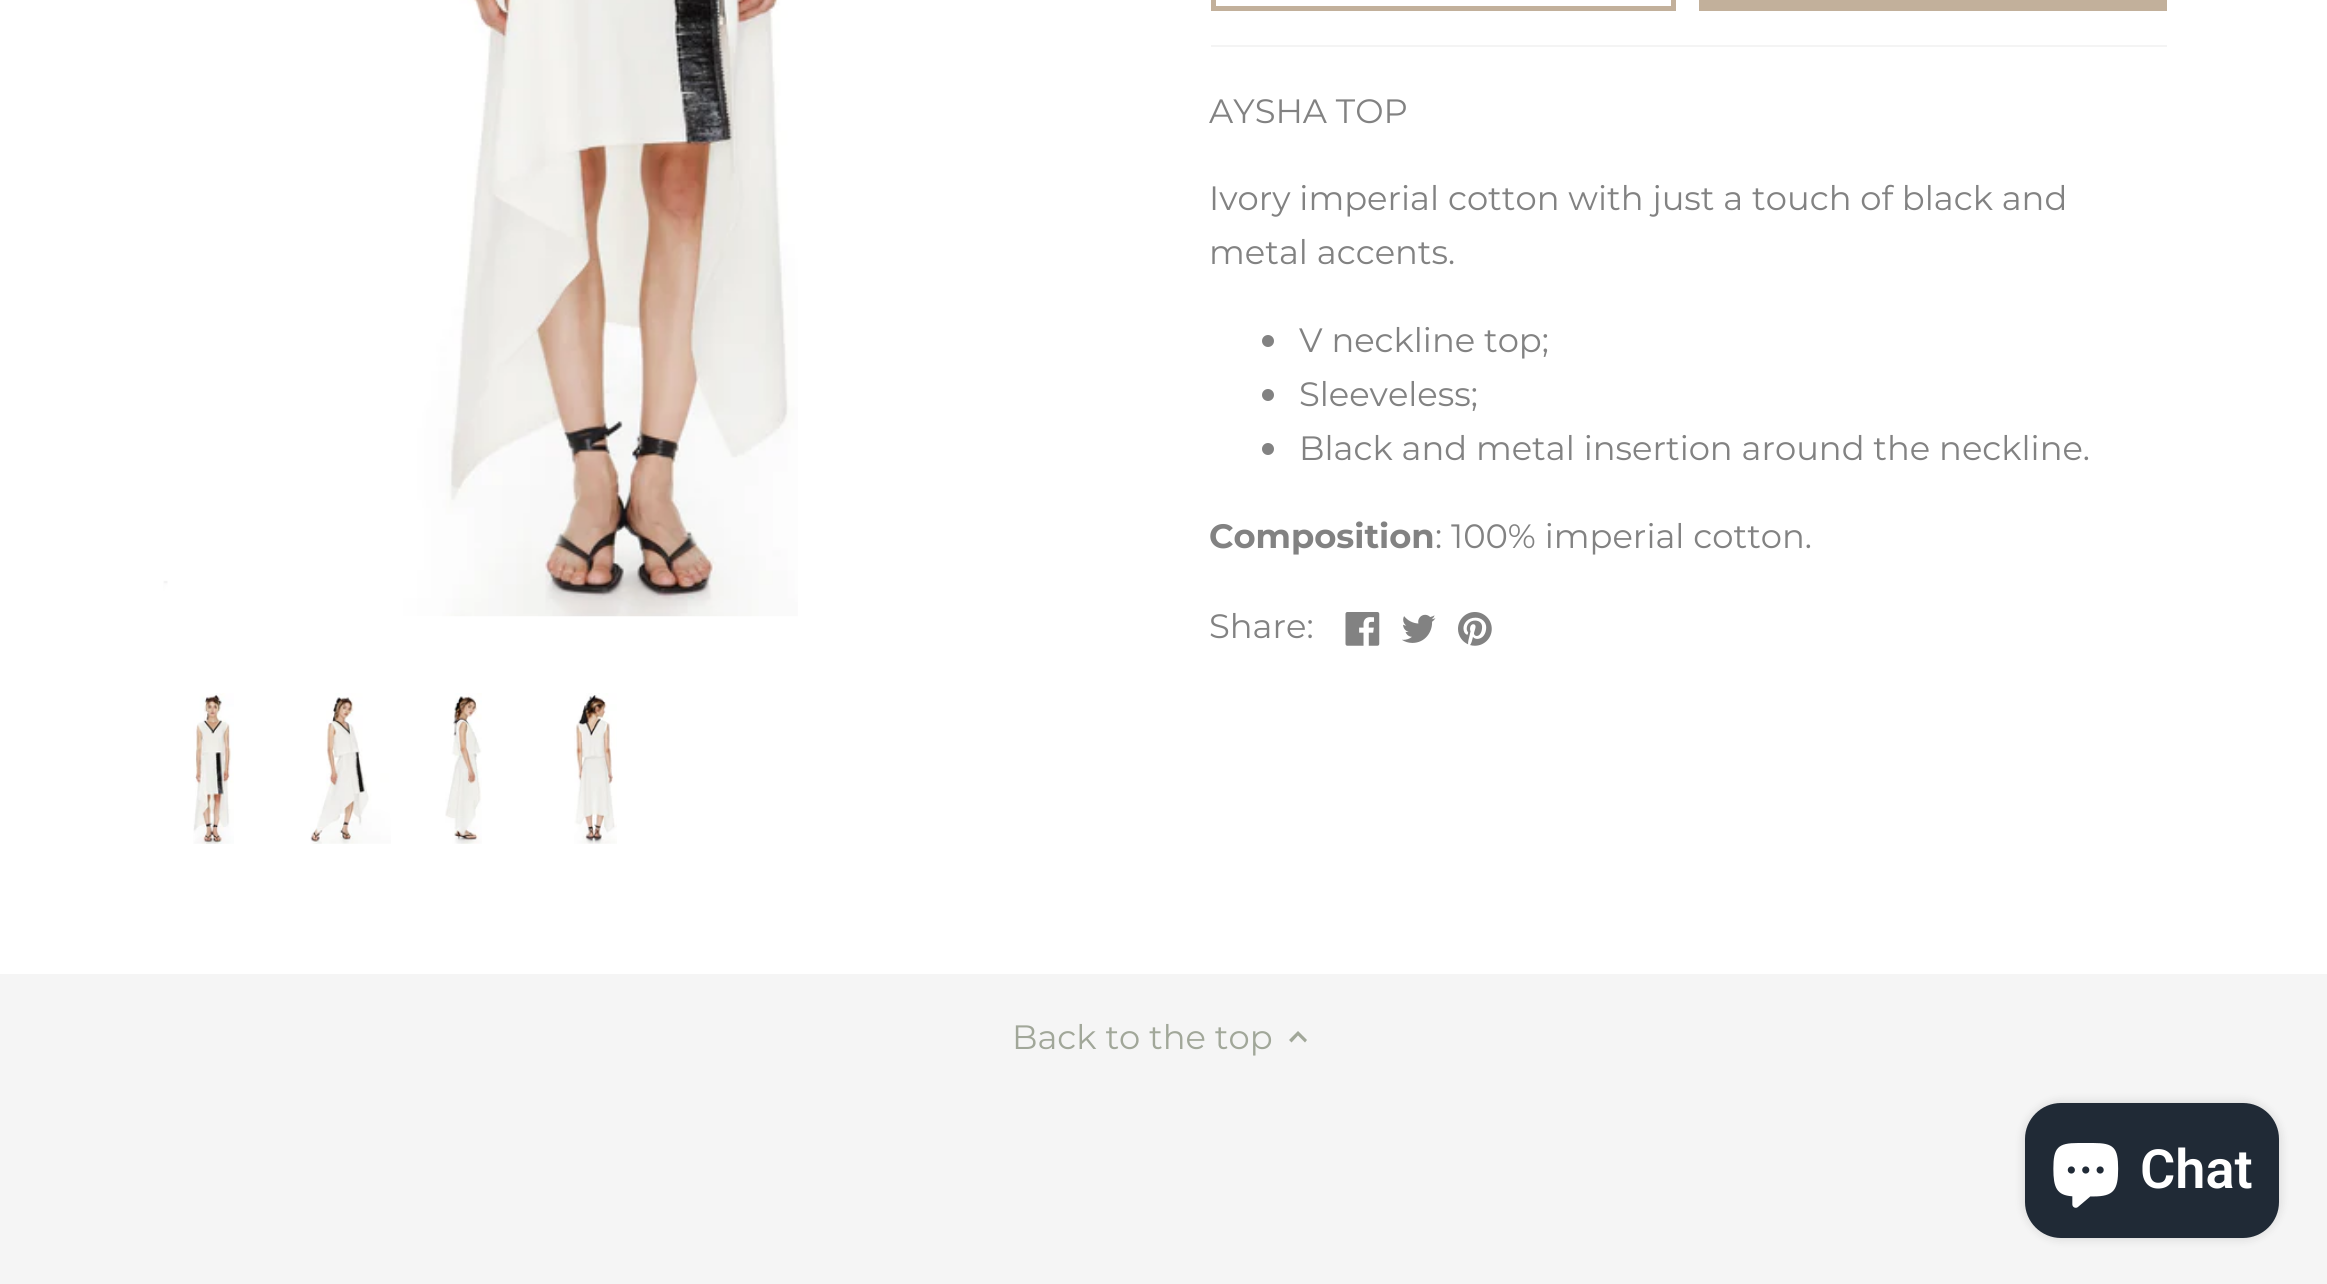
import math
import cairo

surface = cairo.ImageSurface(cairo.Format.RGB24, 2327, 1284)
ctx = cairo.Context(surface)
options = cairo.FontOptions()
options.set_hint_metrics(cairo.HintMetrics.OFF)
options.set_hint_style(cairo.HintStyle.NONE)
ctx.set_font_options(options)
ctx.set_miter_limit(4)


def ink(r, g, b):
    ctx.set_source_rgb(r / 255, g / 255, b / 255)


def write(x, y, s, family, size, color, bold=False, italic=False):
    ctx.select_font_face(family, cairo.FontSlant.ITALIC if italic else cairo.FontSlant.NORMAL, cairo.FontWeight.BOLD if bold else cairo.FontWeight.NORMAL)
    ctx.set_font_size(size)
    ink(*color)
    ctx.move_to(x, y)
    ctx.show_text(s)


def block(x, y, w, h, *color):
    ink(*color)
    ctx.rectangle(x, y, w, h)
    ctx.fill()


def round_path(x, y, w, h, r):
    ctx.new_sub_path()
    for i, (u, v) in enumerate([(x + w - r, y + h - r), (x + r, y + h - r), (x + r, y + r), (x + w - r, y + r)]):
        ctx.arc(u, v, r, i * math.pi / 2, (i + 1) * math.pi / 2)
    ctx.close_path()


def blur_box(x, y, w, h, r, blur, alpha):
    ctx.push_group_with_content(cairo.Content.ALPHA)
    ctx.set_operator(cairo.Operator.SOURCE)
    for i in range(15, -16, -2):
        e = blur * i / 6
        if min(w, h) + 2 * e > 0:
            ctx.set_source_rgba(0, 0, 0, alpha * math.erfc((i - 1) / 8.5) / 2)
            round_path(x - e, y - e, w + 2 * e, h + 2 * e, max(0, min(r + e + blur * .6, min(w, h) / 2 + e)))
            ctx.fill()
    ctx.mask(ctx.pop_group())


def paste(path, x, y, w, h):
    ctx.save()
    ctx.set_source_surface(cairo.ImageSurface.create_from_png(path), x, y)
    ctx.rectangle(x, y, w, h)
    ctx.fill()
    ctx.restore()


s1 = dict(family="Montserrat", size=33.75, color=(130, 130, 130))
s2 = dict(family="Montserrat", size=33.75, color=(130, 130, 130), bold=True)
s3 = dict(family="Montserrat", size=33.75, color=(161, 167, 153))
s4 = dict(family="Roboto SemiBold", size=54, color=(255, 255, 255))

ink(245, 245, 245)
ctx.paint()
block(0, 0, 2327, 974, 255, 255, 255)
paste("pic1.png", 163, 0, 635, 617)
paste("pic2.png", 193, 693, 41, 151)
paste("pic3.png", 310, 693, 81, 151)
paste("pic4.png", 445, 693, 37, 151)
paste("pic5.png", 574, 693, 43, 151)
block(1211, 45, 956, 2, 244, 244, 244)
ctx.rectangle(1213.5, -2.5, 460, 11)
ink(194, 176, 155)
ctx.set_line_width(5)
ctx.stroke()
block(1699, 0, 468, 11, 194, 176, 155)
write(1209, 123, "AYSHA TOP", **s1)
write(1209, 210, "Ivory imperial cotton with just a touch of black and", **s1)
write(1209, 264, "metal accents.", **s1)
ctx.new_path()
ctx.arc(1268, 341, 6, 0, 2 * math.pi)
ctx.fill()
write(1299, 352, "V neckline top;", **s1)
ctx.new_path()
ctx.arc(1268, 395, 6, 0, 2 * math.pi)
ctx.fill()
write(1299, 406, "Sleeveless;", **s1)
ctx.new_path()
ctx.arc(1268, 449, 6, 0, 2 * math.pi)
ctx.fill()
write(1299, 460, "Black and metal insertion around the neckline.", **s1)
write(1209, 548, "Composition", **s2)
write(1435, 548, ": 100% imperial cotton.", **s1)
write(1209, 638, "Share:", **s1)
paste("pic6.png", 1345, 612, 35, 34)
paste("pic7.png", 1402, 614, 34, 29)
paste("pic8.png", 1458, 612, 34, 34)
write(1012, 1049, "Back to the top", **s3)
ctx.new_path()
ctx.move_to(1291.5, 1042.5)
ctx.line_to(1298, 1035.5)
ctx.line_to(1305, 1042.5)
ctx.line_to(1307, 1040)
ctx.line_to(1298, 1031)
ctx.line_to(1289, 1040)
ctx.close_path()
ctx.fill()
ink(0, 0, 0)
blur_box(2025, 1103, 254, 135, 36, 5.5, 0.15)
ink(32, 42, 54)
round_path(2025, 1103, 254, 135, 36)
ctx.fill()
paste("pic9.png", 2053, 1143, 66, 65)
write(2140, 1188, "Chat", **s4)
surface.write_to_png("screenshot.png")
